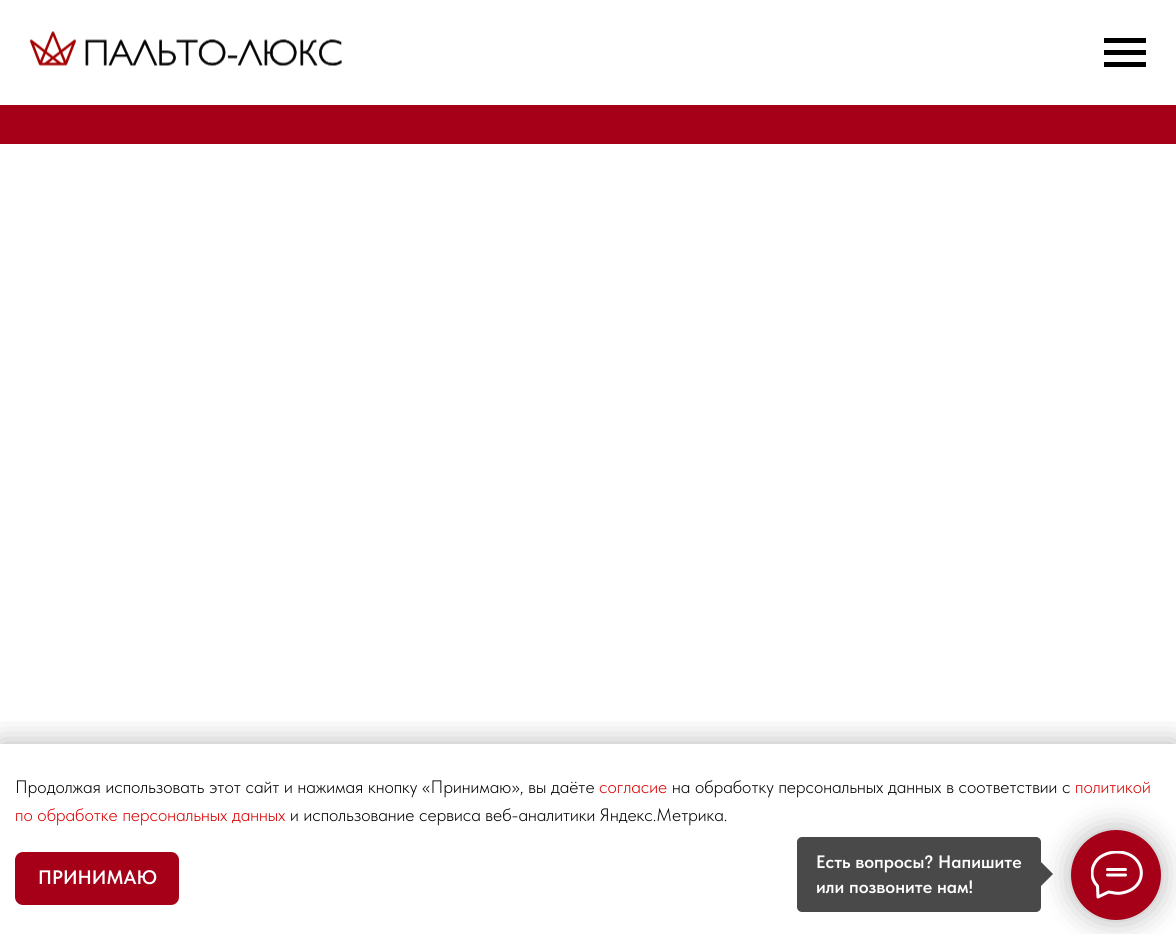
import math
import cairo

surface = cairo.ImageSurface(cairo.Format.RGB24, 1176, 934)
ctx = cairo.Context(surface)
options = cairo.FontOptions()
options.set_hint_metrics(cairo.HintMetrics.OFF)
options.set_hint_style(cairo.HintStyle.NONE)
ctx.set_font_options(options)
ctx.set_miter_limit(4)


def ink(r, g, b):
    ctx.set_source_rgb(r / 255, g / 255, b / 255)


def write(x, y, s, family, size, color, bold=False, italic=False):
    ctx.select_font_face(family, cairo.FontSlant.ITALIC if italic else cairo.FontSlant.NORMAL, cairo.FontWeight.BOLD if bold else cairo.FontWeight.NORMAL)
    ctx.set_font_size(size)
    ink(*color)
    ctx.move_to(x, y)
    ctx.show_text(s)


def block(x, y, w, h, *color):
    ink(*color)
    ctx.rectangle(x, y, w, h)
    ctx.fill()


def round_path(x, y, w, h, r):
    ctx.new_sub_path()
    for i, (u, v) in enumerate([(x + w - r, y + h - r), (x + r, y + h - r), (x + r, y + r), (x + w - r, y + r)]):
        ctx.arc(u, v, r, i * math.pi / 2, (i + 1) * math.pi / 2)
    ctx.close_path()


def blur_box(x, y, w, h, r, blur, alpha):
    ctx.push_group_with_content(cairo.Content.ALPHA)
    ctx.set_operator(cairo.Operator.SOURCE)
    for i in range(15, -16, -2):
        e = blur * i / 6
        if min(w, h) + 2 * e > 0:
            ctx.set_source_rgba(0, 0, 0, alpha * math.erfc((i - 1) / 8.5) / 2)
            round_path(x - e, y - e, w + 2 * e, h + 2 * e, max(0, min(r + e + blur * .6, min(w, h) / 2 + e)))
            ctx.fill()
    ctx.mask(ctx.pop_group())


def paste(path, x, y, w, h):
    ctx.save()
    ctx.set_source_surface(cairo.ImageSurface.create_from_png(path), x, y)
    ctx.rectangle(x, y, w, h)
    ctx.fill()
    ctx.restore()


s1 = dict(family="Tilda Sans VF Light", size=18, color=(0, 0, 0))
s2 = dict(family="Tilda Sans VF Light", size=18, color=(217, 0, 0))
s3 = dict(family="Tilda Sans VF SemiBold", size=19.5, color=(255, 255, 255))
s4 = dict(family="Tilda Sans VF SemiBold", size=18, color=(255, 255, 255))

ink(255, 255, 255)
ctx.paint()
paste("pic1.png", 30, 31, 312, 35)
block(1104, 38, 42, 5, 0, 0, 0)
block(1104, 50, 42, 5, 0, 0, 0)
block(1104, 62, 42, 5, 0, 0, 0)
block(0, 105, 1176, 39, 166, 0, 25)
ctx.save()
ctx.rectangle(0, 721, 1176, 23)
ctx.clip()
ink(0, 0, 0)
blur_box(0, 744, 1176, 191, 0, 15, 0.3)
ctx.restore()
write(15, 793, "Продолжая использовать этот сайт и нажимая кнопку «Принимаю», вы даёте", **s1)
write(599, 793, "согласие", **s2)
write(672, 793, "на обработку персональных данных в соответствии с", **s1)
write(1075, 793, "политикой", **s2)
write(15, 821, "по обработке персональных данных", **s2)
write(290, 821, "и использование сервиса веб-аналитики Яндекс.Метрика.", **s1)
ink(166, 0, 25)
round_path(15, 852, 164, 53, 8)
ctx.fill()
write(38, 884, "ПРИНИМАЮ", **s3)
ink(73, 73, 73)
round_path(797, 837, 244, 75, 5)
ctx.fill()
write(816, 868, "Есть вопросы? Напишите", **s4)
ink(73, 73, 73)
ctx.new_path()
ctx.move_to(1041, 886)
ctx.line_to(1041, 862)
ctx.line_to(1053, 874)
ctx.close_path()
ctx.fill()
write(816, 893, "или позвоните нам!", **s4)
ink(0, 0, 0)
blur_box(1071, 830, 90, 90, 45, 15, 0.3)
ink(166, 0, 25)
ctx.arc(1116, 875, 45, 0, 2 * math.pi)
ctx.fill()
ctx.save()
ctx.rectangle(1091, 851, 52, 48)
ctx.clip()
ctx.new_path()
ctx.move_to(1107.5, 869.5)
ctx.line_to(1125.5, 869.5)
ctx.move_to(1107.5, 875)
ctx.line_to(1125.5, 875)
ctx.move_to(1097.5, 886)
ctx.curve_to(1089.5, 878, 1090.5, 865.5, 1099, 858)
ctx.curve_to(1104, 854, 1110.5, 852, 1117, 852)
ctx.curve_to(1146, 852, 1151, 888, 1121.5, 893)
ctx.curve_to(1116.5, 894, 1113.5, 892.5, 1108.5, 892)
ctx.line_to(1098, 897)
ctx.close_path()
ink(255, 255, 255)
ctx.set_line_width(3)
ctx.set_line_cap(cairo.LineCap.ROUND)
ctx.set_line_join(cairo.LineJoin.ROUND)
ctx.stroke()
ctx.restore()
surface.write_to_png("screenshot.png")
